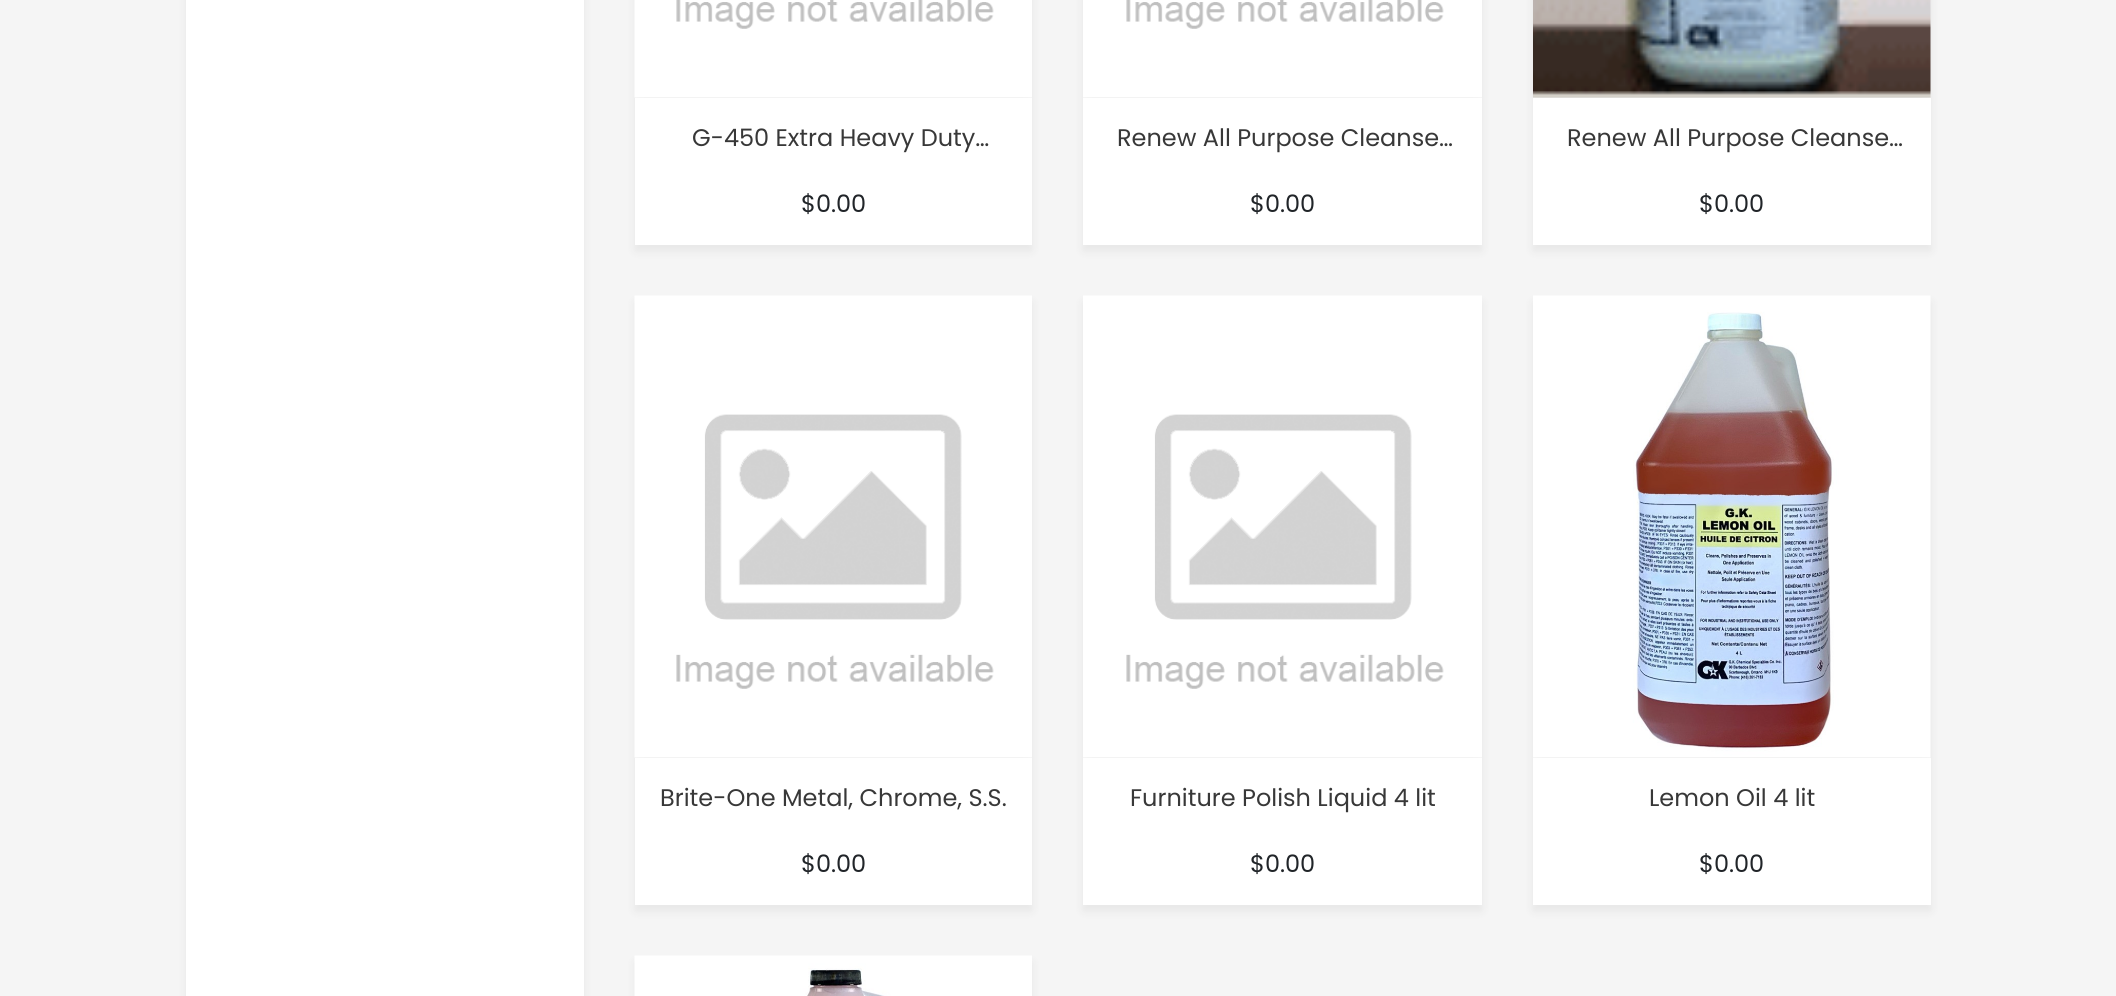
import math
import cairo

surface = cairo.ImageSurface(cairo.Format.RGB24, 2116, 996)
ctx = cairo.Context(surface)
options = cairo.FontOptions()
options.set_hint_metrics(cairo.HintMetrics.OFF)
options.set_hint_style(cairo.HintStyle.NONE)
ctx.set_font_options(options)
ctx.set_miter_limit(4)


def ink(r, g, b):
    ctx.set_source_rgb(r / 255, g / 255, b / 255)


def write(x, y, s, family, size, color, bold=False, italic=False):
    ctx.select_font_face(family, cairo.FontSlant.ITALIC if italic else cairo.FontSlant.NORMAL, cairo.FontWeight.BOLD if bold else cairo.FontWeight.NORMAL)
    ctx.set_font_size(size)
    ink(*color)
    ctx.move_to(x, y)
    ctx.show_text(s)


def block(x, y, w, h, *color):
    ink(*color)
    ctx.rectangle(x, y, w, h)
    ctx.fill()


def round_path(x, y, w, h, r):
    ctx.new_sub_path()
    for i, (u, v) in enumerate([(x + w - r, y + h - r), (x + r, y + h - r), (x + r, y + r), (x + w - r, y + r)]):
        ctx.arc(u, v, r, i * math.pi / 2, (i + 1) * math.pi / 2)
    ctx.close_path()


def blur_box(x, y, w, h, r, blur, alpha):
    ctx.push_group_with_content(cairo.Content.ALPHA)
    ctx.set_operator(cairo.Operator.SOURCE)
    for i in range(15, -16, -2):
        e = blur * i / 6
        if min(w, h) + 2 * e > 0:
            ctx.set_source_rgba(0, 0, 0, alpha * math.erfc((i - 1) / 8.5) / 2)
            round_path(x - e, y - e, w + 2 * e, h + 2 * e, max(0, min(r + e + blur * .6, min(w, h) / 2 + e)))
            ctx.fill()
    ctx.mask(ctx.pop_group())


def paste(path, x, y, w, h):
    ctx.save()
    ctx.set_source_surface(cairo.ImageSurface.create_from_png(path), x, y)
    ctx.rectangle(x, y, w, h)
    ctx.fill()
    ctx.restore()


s1 = dict(family="Poppins", size=24, color=(56, 56, 56))
s2 = dict(family="Poppins", size=24, color=(33, 37, 41))

ink(245, 245, 245)
ctx.paint()
ink(0, 0, 0)
blur_box(186, -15, 398, 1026, 0, 5, 0.06)
block(186, 0, 398, 996, 255, 255, 255)
ink(0, 0, 0)
blur_box(635, -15, 397, 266, 0, 5, 0.06)
paste("pic1.png", 634, 0, 398, 98)
block(635, 98, 397, 147, 255, 255, 255)
write(692, 146, "G-450 Extra Heavy Duty…", **s1)
write(801, 212, "$0.00", **s2)
ink(0, 0, 0)
blur_box(1083, -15, 399, 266, 0, 5, 0.06)
paste("pic2.png", 1083, 0, 399, 98)
block(1083, 98, 399, 147, 255, 255, 255)
write(1117, 146, "Renew All Purpose Cleanse…", **s1)
write(1250, 212, "$0.00", **s2)
ink(0, 0, 0)
blur_box(1533, -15, 398, 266, 0, 5, 0.06)
paste("pic3.png", 1533, 0, 398, 98)
block(1533, 98, 398, 147, 255, 255, 255)
write(1567, 146, "Renew All Purpose Cleanse…", **s1)
write(1699, 212, "$0.00", **s2)
ink(0, 0, 0)
blur_box(635, 302, 397, 609, 0, 5, 0.06)
paste("pic4.png", 634, 295, 398, 463)
block(635, 758, 397, 147, 255, 255, 255)
write(660, 806, "Brite-One Metal, Chrome, S.S.", **s1)
write(801, 872, "$0.00", **s2)
ink(0, 0, 0)
blur_box(1083, 302, 399, 609, 0, 5, 0.06)
paste("pic5.png", 1083, 295, 399, 463)
block(1083, 758, 399, 147, 255, 255, 255)
write(1130, 806, "Furniture Polish Liquid 4 lit", **s1)
write(1250, 872, "$0.00", **s2)
ink(0, 0, 0)
blur_box(1533, 302, 398, 609, 0, 5, 0.06)
paste("pic6.png", 1533, 295, 398, 463)
block(1533, 758, 398, 147, 255, 255, 255)
write(1649, 806, "Lemon Oil 4 lit", **s1)
write(1699, 872, "$0.00", **s2)
ink(0, 0, 0)
blur_box(635, 962, 397, 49, 0, 5, 0.06)
paste("pic7.png", 634, 955, 398, 41)
surface.write_to_png("screenshot.png")
